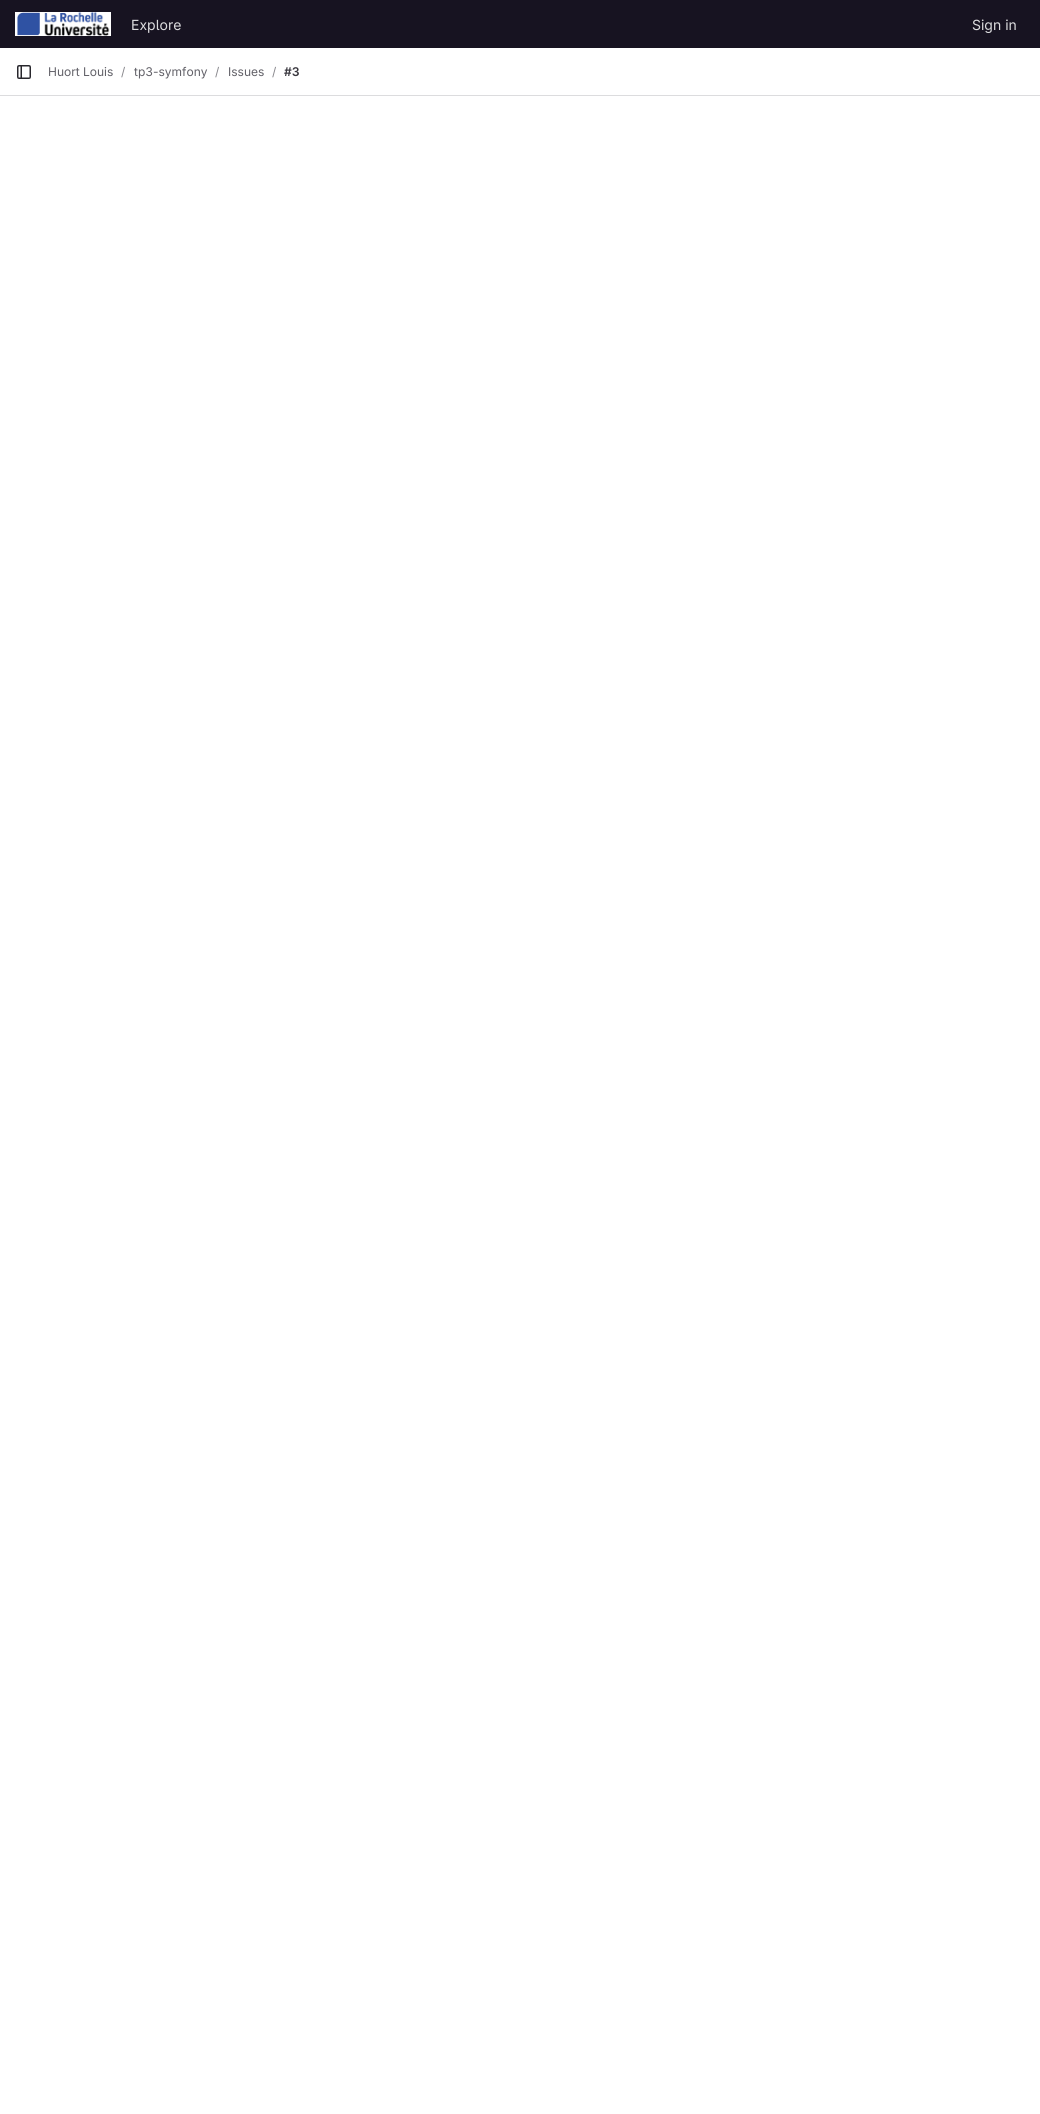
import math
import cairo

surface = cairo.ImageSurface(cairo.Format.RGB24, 1040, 2114)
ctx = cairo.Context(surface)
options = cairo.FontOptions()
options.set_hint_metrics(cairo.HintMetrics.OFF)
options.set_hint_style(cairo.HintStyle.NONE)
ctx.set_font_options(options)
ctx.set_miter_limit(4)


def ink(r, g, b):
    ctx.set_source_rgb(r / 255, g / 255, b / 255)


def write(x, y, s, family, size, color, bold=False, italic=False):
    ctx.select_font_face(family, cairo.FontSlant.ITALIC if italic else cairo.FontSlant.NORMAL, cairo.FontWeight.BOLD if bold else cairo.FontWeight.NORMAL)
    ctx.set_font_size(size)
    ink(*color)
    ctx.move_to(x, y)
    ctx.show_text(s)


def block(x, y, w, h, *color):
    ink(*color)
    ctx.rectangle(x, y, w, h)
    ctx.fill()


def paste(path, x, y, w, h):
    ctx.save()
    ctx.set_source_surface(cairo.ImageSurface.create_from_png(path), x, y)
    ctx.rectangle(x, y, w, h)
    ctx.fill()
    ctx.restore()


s1 = dict(family="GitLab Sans", size=14, color=(220, 220, 222))
s2 = dict(family="GitLab Sans", size=12, color=(98, 97, 104))
s3 = dict(family="GitLab Sans", size=12, color=(137, 136, 141))
s4 = dict(family="GitLab Sans SemiBold", size=12, color=(58, 56, 63))

ink(255, 255, 255)
ctx.paint()
block(0, 0, 1040, 48, 23, 19, 33)
paste("pic1.png", 15, 12, 96, 24)
write(131, 30, "Explore", **s1)
write(972, 30, "Sign in", **s1)
block(0, 95, 1040, 1, 220, 220, 222)
paste("pic2.png", 17, 65, 14, 14)
write(48, 76, "Huort Louis", **s2)
write(121, 76, "/", **s3)
write(134, 76, "tp3-symfony", **s2)
write(215, 76, "/", **s3)
write(228, 76, "Issues", **s2)
write(272, 76, "/", **s3)
write(284, 76, "#3", **s4)
surface.write_to_png("screenshot.png")
